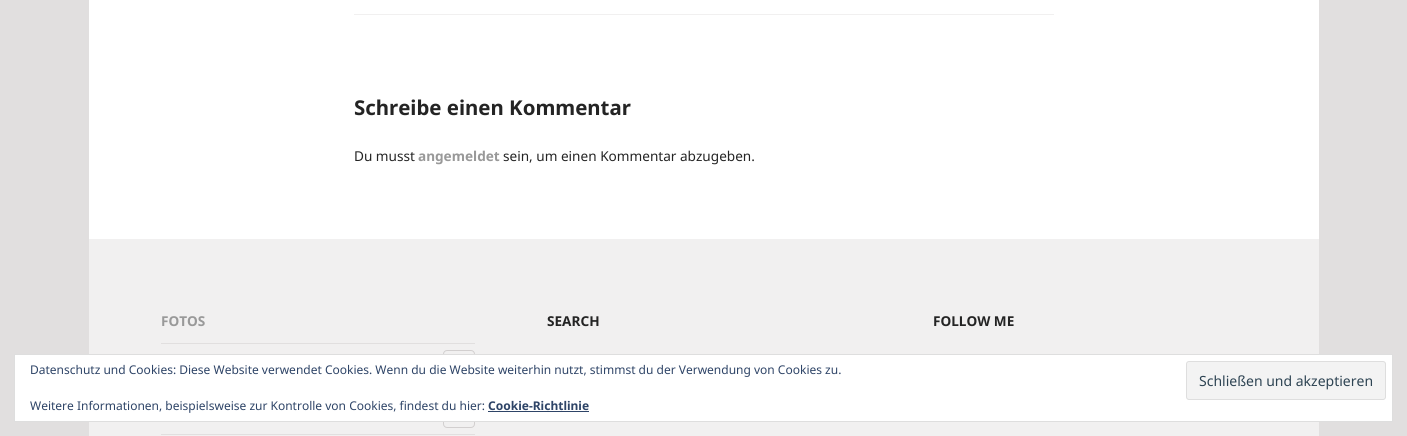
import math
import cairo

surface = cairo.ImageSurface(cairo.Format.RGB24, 1407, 436)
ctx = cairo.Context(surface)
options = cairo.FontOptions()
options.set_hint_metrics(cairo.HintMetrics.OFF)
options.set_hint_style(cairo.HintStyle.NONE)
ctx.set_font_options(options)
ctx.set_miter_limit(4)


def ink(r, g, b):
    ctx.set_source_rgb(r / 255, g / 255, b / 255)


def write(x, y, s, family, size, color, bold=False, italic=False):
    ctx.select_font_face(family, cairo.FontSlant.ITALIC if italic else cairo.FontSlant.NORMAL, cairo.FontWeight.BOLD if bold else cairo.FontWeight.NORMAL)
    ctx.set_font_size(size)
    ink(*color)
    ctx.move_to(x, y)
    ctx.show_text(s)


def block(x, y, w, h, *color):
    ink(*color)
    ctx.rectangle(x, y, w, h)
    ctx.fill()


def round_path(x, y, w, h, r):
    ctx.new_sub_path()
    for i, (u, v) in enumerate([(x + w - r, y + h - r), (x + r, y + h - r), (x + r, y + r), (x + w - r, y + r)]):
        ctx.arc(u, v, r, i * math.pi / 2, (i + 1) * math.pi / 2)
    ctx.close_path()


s1 = dict(family="Noto Sans", size=20.4, color=(36, 36, 36), bold=True)
s2 = dict(family="Noto Sans", size=13.6, color=(36, 36, 36))
s3 = dict(family="Noto Sans", size=13.6, color=(153, 153, 153), bold=True)
s4 = dict(family="Noto Sans", size=13.6, color=(36, 36, 36), bold=True)
s5 = dict(family="Noto Sans", size=12, color=(46, 68, 103))
s6 = dict(family="Noto Sans", size=14, color=(46, 68, 83))
s7 = dict(family="Noto Sans", size=12, color=(46, 68, 103), bold=True)

ink(225, 223, 223)
ctx.paint()
block(89, 0, 1230, 239, 255, 255, 255)
block(354, 14, 700, 1, 241, 240, 240)
write(354, 115, "Schreibe einen Kommentar", **s1)
write(354, 161, "Du musst", **s2)
write(418, 161, "angemeldet", **s3)
write(503, 161, "sein, um einen Kommentar abzugeben.", **s2)
block(89, 239, 1230, 197, 241, 240, 240)
write(161, 326, "FOTOS", **s3)
block(161, 343, 314, 1, 225, 223, 223)
round_path(443.5, 350.5, 31, 31, 3.5)
ink(210, 207, 207)
ctx.set_line_width(1)
ctx.stroke()
round_path(443.5, 396.5, 31, 31, 3.5)
ctx.stroke()
block(161, 434, 314, 1, 225, 223, 223)
write(547, 326, "SEARCH", **s4)
write(933, 326, "FOLLOW ME", **s4)
ink(255, 255, 255)
ctx.rectangle(14.5, 354.5, 1378, 67)
ctx.fill_preserve()
ink(222, 222, 222)
ctx.stroke()
write(30, 374, "Datenschutz und Cookies: Diese Website verwendet Cookies. Wenn du die Website weiterhin nutzt, stimmst du der Verwendung von Cookies zu.", **s5)
ink(243, 243, 243)
round_path(1186.5, 361.5, 199, 38, 2.5)
ctx.fill_preserve()
ink(222, 222, 222)
ctx.stroke()
write(1199, 386, "Schließen und akzeptieren", **s6)
write(30, 410, "Weitere Informationen, beispielsweise zur Kontrolle von Cookies, findest du hier:", **s5)
write(488, 410, "Cookie-Richtlinie", **s7)
block(488, 411, 101, 1, 46, 68, 103)
surface.write_to_png("screenshot.png")
